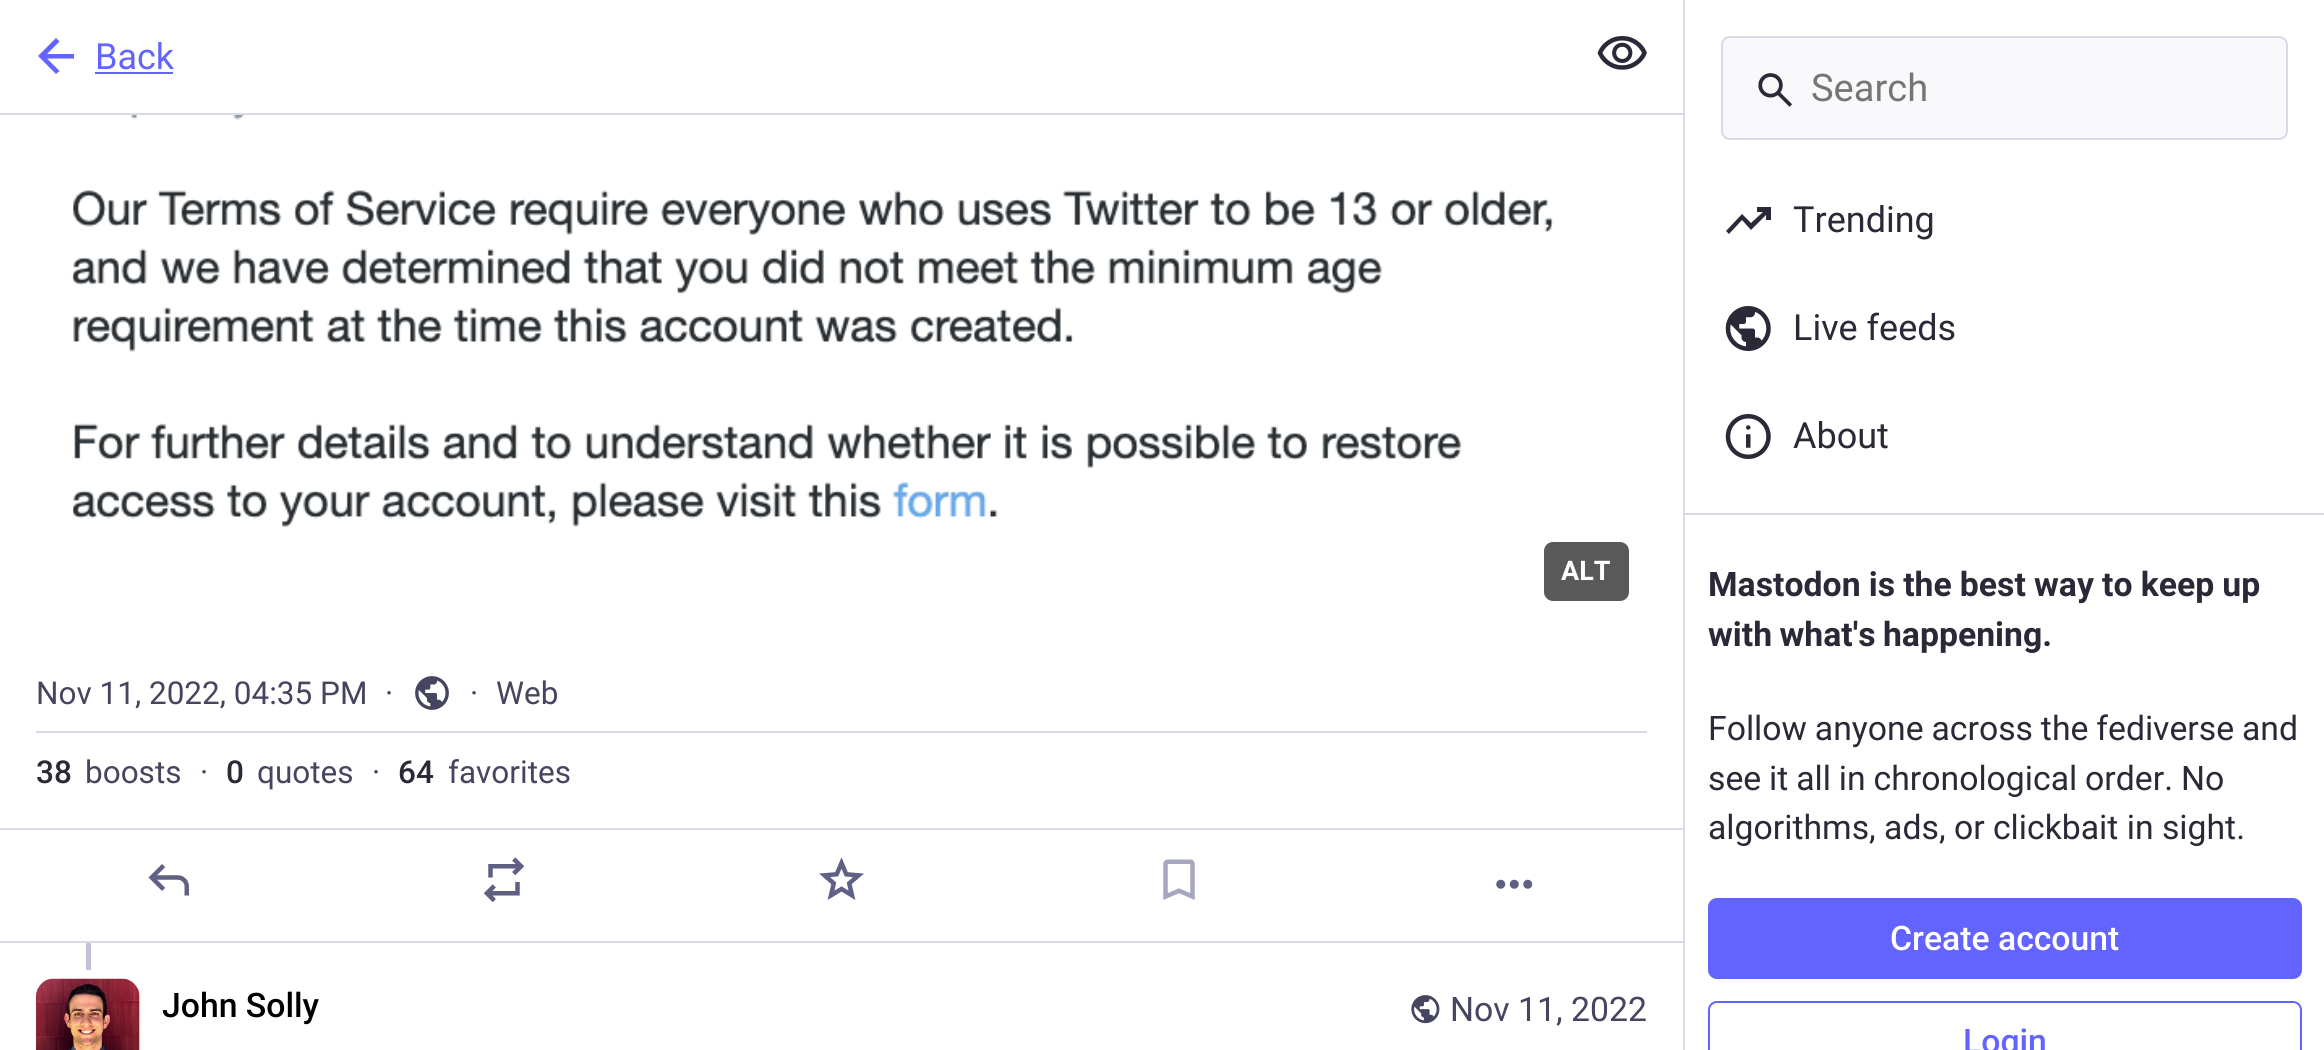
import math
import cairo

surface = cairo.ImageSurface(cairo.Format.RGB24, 2324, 1050)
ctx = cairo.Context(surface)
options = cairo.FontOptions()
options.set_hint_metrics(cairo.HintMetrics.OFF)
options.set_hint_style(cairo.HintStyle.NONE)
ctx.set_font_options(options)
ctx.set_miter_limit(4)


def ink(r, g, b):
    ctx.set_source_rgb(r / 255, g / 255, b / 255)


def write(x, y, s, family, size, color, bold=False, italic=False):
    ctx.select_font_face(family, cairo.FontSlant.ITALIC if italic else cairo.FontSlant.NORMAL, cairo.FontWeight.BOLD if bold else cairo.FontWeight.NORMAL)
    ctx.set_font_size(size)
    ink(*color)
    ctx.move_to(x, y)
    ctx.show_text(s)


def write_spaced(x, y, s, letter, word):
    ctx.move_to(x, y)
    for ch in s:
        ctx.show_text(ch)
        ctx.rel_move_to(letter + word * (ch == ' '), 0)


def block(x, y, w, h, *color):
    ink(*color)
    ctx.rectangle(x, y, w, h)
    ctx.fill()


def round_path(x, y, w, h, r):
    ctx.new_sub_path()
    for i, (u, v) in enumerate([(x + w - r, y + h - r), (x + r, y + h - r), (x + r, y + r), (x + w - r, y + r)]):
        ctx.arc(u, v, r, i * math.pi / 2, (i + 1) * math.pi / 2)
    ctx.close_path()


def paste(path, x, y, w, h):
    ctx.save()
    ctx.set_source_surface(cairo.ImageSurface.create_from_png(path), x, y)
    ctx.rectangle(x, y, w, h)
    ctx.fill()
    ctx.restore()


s1 = dict(family="Roboto", size=36, color=(99, 100, 255))
s2 = dict(family="Roboto", size=27, color=(255, 255, 255), bold=True)
s3 = dict(family="Roboto", size=31.5, color=(69, 69, 95))
s4 = dict(family="Roboto Medium", size=31.5, color=(41, 41, 56))
s5 = dict(family="Roboto Medium", size=33.75, color=(0, 0, 0))
s6 = dict(family="Roboto", size=33.75, color=(69, 69, 95))
s7 = dict(family="Roboto", size=38, color=(117, 117, 117))
s8 = dict(family="Roboto", size=36, color=(41, 41, 56))
s9 = dict(family="Roboto", size=33.75, color=(41, 41, 56))
s10 = dict(family="Roboto Medium", size=33.75, color=(255, 255, 255))
s11 = dict(family="Roboto Medium", size=33.75, color=(99, 100, 255))

ink(255, 255, 255)
ctx.paint()
block(0, 113, 1683, 2, 217, 217, 232)
ink(99, 100, 255)
ctx.new_path()
ctx.move_to(47, 58.5)
ctx.line_to(59.5, 71)
ctx.line_to(56, 74)
ctx.line_to(38, 56)
ctx.line_to(56, 38)
ctx.line_to(59.5, 41.5)
ctx.line_to(47, 54)
ctx.line_to(74, 54)
ctx.line_to(74, 58.5)
ctx.close_path()
ctx.fill()
write(95, 69, "Back", **s1)
block(95, 72, 78, 2, 99, 100, 255)
paste("pic1.png", 1597, 36, 50, 34)
paste("pic2.png", 71, 115, 1483, 412)
ink(89, 89, 89)
round_path(1544, 542, 85, 59, 9)
ctx.fill()
write(1561, 580, "ALT", **s2)
block(36, 731, 1611, 2, 217, 217, 232)
write(36, 704, "Nov 11, 2022, 04:35 PM", **s3)
write(385, 704, "·", **s3)
paste("pic3.png", 415, 676, 34, 34)
write(470, 704, "·", **s3)
write(496, 704, "Web", **s3)
write(36, 783, "38", **s4)
write(85, 783, "boosts", **s3)
write(200, 783, "·", **s3)
write(226, 783, "0", **s4)
write(257, 783, "quotes", **s3)
write(372, 783, "·", **s3)
write(398, 783, "64", **s4)
write(448, 783, "favorites", **s3)
block(0, 828, 1683, 2, 217, 217, 232)
block(0, 941, 1683, 2, 217, 217, 232)
paste("pic4.png", 148, 864, 41, 32)
paste("pic5.png", 483, 857, 42, 46)
paste("pic6.png", 819, 857, 45, 43)
paste("pic7.png", 1163, 859, 32, 41)
paste("pic8.png", 1496, 879, 37, 10)
block(86, 943, 5, 27, 198, 191, 217)
ink(232, 230, 240)
round_path(36, 979, 104, 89, 18)
ctx.fill()
paste("pic9.png", 36, 978, 104, 72)
write(162, 1017, "John Solly", **s5)
paste("pic10.png", 1411, 995, 29, 29)
write(1450, 1021, "Nov 11, 2022", **s6)
block(1683, 0, 2, 1050, 217, 217, 232)
ink(249, 249, 251)
round_path(1722, 37, 565, 102, 8)
ctx.fill_preserve()
ink(217, 217, 232)
ctx.stroke()
paste("pic11.png", 1758, 73, 34, 34)
write(1811, 101, "Search", **s7)
ink(41, 41, 56)
ctx.new_path()
ctx.move_to(1729, 234)
ctx.line_to(1726, 231)
ctx.line_to(1742, 214)
ctx.line_to(1751, 223)
ctx.line_to(1763, 212)
ctx.line_to(1757, 212)
ctx.line_to(1757, 207)
ctx.line_to(1771, 207)
ctx.line_to(1771, 220)
ctx.line_to(1766, 220)
ctx.line_to(1766, 215)
ctx.line_to(1751, 230)
ctx.line_to(1742, 220)
ctx.close_path()
ctx.fill()
write(1793, 232, "Trending", **s8)
paste("pic12.png", 1725, 306, 46, 45)
write(1793, 340, "Live feeds", **s8)
paste("pic13.png", 1725, 414, 46, 45)
write(1793, 448, "About", **s8)
block(1685, 513, 639, 2, 217, 217, 232)
ctx.select_font_face("Roboto", cairo.FontSlant.NORMAL, cairo.FontWeight.BOLD)
ctx.set_font_size(33.75)
ink(41, 41, 56)
write_spaced(1708, 596, "Mastodon is the best way to keep up", 0, -0.25)
write_spaced(1708, 646, "with what's happening.", 0, -1)
ctx.select_font_face("Roboto")
write_spaced(1708, 740, "Follow anyone across the fediverse and", 0, -0.5)
write_spaced(1708, 790, "see it all in chronological order. No", 0, -0.5)
write(1708, 839, "algorithms, ads, or clickbait in sight.", **s9)
ink(99, 100, 255)
round_path(1708, 898, 594, 81, 9)
ctx.fill()
write(1890, 950, "Create account", **s10)
round_path(1709, 1002, 592, 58, 8)
ink(99, 100, 255)
ctx.stroke()
write(1963, 1053, "Login", **s11)
surface.write_to_png("screenshot.png")
